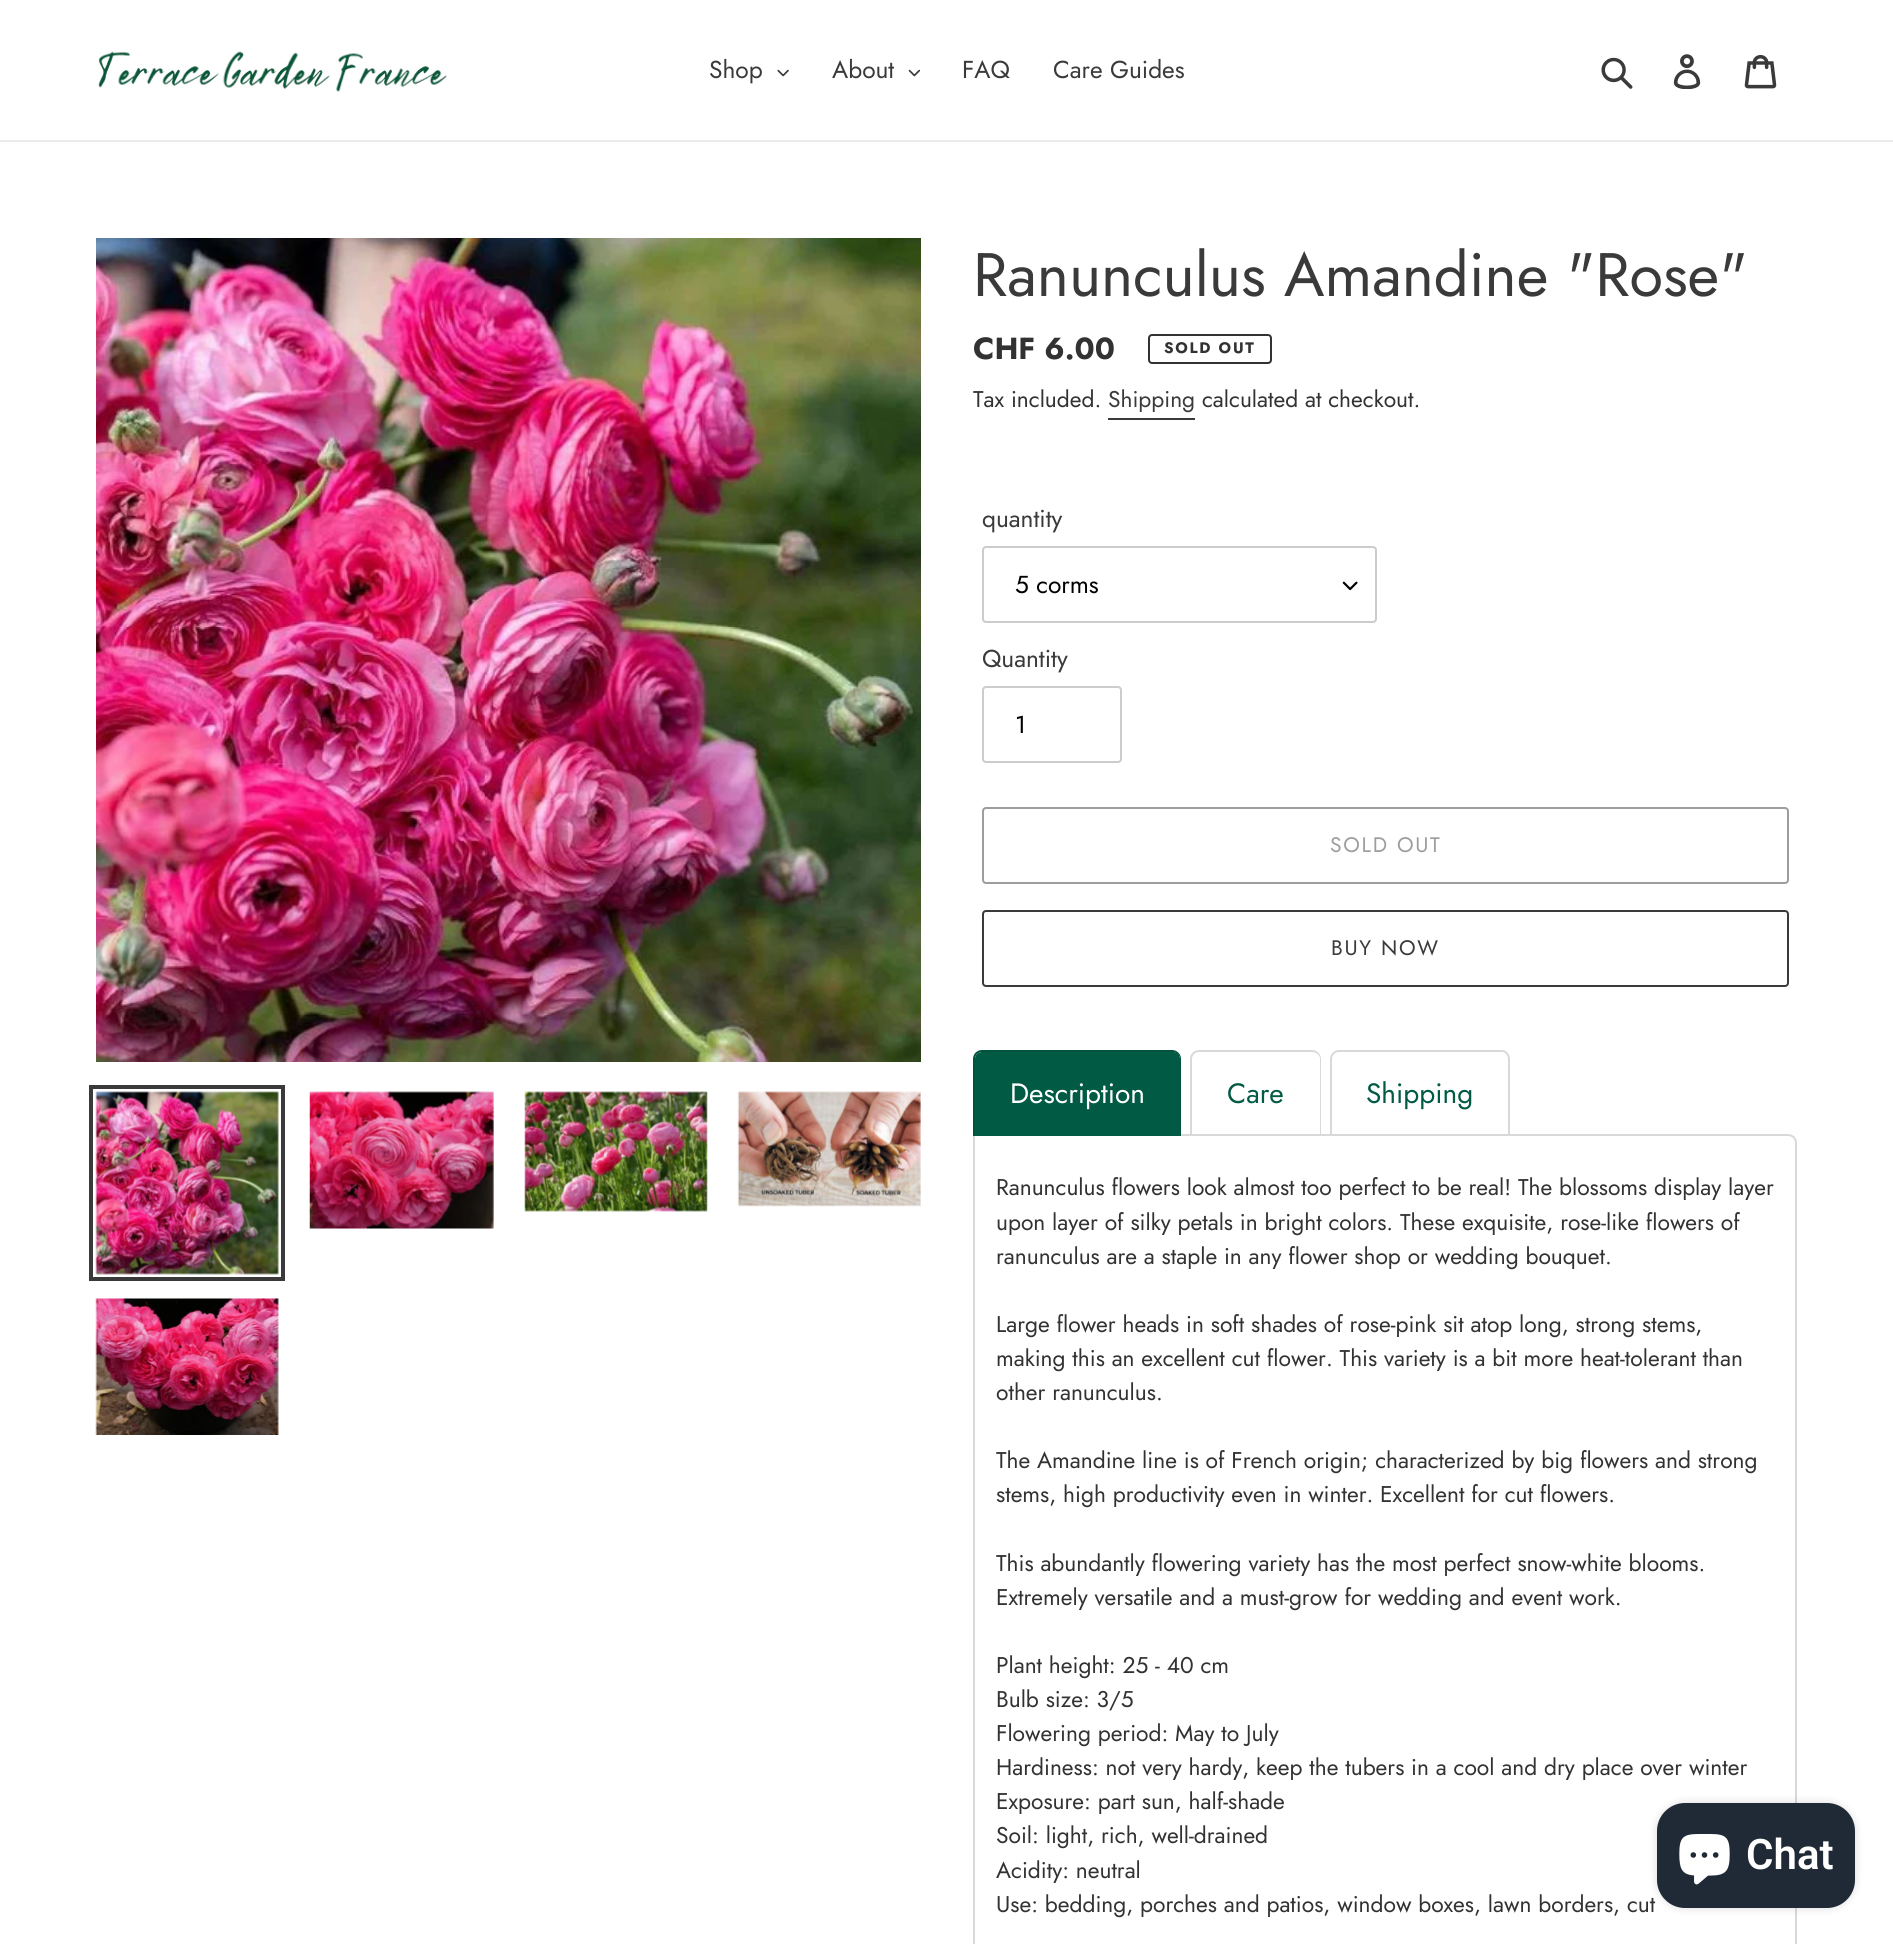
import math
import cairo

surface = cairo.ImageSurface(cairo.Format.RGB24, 1893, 1944)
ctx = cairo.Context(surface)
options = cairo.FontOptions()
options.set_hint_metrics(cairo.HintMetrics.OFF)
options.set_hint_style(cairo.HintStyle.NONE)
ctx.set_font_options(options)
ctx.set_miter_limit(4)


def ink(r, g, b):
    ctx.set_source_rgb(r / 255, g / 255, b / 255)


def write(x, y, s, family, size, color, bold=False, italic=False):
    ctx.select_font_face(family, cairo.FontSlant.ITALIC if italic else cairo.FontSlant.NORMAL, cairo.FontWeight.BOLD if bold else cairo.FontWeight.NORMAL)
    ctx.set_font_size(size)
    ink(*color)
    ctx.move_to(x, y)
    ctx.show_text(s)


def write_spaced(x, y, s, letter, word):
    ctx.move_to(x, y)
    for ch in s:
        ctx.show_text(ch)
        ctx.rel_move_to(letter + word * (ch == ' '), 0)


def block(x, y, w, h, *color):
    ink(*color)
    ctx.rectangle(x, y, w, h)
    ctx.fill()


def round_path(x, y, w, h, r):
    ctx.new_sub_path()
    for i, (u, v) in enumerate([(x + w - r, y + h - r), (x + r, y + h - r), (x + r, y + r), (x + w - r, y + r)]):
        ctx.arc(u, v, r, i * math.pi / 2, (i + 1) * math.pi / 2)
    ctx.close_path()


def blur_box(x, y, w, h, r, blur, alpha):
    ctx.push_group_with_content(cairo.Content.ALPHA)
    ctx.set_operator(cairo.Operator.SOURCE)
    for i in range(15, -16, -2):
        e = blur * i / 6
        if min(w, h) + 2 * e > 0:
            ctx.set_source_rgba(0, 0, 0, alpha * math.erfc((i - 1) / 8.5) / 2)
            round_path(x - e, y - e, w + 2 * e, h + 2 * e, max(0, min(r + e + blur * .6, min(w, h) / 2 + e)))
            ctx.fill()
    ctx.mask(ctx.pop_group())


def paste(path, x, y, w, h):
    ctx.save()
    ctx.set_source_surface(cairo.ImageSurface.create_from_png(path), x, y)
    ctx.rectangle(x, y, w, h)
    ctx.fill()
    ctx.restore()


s1 = dict(family="Jost", size=24.5, color=(58, 58, 58))
s2 = dict(family="Jost", size=61.25, color=(58, 58, 58))
s3 = dict(family="Jost", size=30.5, color=(51, 50, 50), bold=True)
s4 = dict(family="Jost", size=22.75, color=(51, 50, 50))
s5 = dict(family="Jost", size=22.75, color=(58, 58, 58))
s6 = dict(family="Jost", size=24.5, color=(0, 0, 0))
s7 = dict(family="Jost", size=28, color=(255, 255, 255))
s8 = dict(family="Jost", size=28, color=(0, 90, 68))
s9 = dict(family="Roboto SemiBold", size=42, color=(255, 255, 255))

ink(255, 255, 255)
ctx.paint()
block(0, 140, 1893, 2, 235, 235, 235)
paste("pic1.png", 98, 51, 349, 41)
write(709, 78, "Shop", **s1)
paste("pic2.png", 777, 69, 12, 8)
write(832, 78, "About", **s1)
paste("pic3.png", 908, 69, 13, 8)
write(962, 78, "FAQ", **s1)
write(1053, 78, "Care Guides", **s1)
paste("pic4.png", 1601, 57, 32, 32)
paste("pic5.png", 1673, 54, 28, 35)
paste("pic6.png", 1744, 54, 33, 35)
paste("pic7.png", 96, 238, 825, 824)
ctx.rectangle(91, 1087, 192, 192)
ctx.set_line_width(4)
ctx.stroke()
paste("pic8.png", 95, 1091, 184, 184)
paste("pic9.png", 309, 1091, 185, 138)
paste("pic10.png", 524, 1091, 184, 121)
paste("pic11.png", 737, 1091, 184, 116)
paste("pic12.png", 95, 1298, 184, 137)
write(973, 296, "Ranunculus Amandine \"Rose\"", **s2)
write(973, 359, "CHF 6.00", **s3)
round_path(1149, 335, 122, 28, 3)
ctx.set_line_width(2)
ctx.stroke()
ctx.set_font_size(15.25)
write_spaced(1164, 353, "SOLD OUT", 1.75, 0)
write(973, 407, "Tax included.", **s4)
write(1108, 407, "Shipping", **s5)
block(1108, 418, 87, 2, 58, 58, 58)
write(1202, 407, "calculated at checkout.", **s4)
write(982, 527, "quantity", **s1)
paste("pic13.png", 1342, 581, 16, 10)
round_path(983, 547, 393, 75, 3)
ink(204, 204, 204)
ctx.stroke()
write(1015, 593, "5 corms", **s6)
write(982, 667, "Quantity", **s1)
round_path(983, 687, 138, 75, 3)
ink(204, 204, 204)
ctx.stroke()
write(1015, 733, "1", **s6)
round_path(983, 808, 805, 75, 3)
ink(157, 157, 157)
ctx.stroke()
ctx.set_font_size(21)
write_spaced(1330, 852, "SOLD OUT", 1.75, 0)
round_path(983, 911, 805, 75, 3)
ink(58, 58, 58)
ctx.stroke()
write_spaced(1331, 955, "BUY NOW", 1.75, 0)
ink(217, 217, 217)
ctx.set_fill_rule(cairo.FillRule.EVEN_ODD)
ctx.new_path()
ctx.move_to(1199, 1050)
ctx.line_to(1312, 1050)
ctx.curve_to(1317, 1050, 1321, 1054, 1321, 1059)
ctx.line_to(1321, 1136)
ctx.line_to(1190, 1136)
ctx.line_to(1190, 1059)
ctx.curve_to(1190, 1054, 1194, 1050, 1199, 1050)
ctx.close_path()
ctx.move_to(1199, 1052)
ctx.line_to(1312, 1052)
ctx.curve_to(1316, 1052, 1320, 1055, 1320, 1059)
ctx.line_to(1320, 1136)
ctx.line_to(1192, 1136)
ctx.line_to(1192, 1059)
ctx.curve_to(1192, 1055, 1195, 1052, 1199, 1052)
ctx.close_path()
ctx.fill()
ctx.new_path()
ctx.move_to(1339, 1050)
ctx.line_to(1502, 1050)
ctx.curve_to(1506, 1050, 1510, 1054, 1510, 1059)
ctx.line_to(1510, 1136)
ctx.line_to(1330, 1136)
ctx.line_to(1330, 1059)
ctx.curve_to(1330, 1054, 1334, 1050, 1339, 1050)
ctx.close_path()
ctx.move_to(1339, 1052)
ctx.line_to(1502, 1052)
ctx.curve_to(1505, 1052, 1508, 1055, 1508, 1059)
ctx.line_to(1508, 1136)
ctx.line_to(1332, 1136)
ctx.line_to(1332, 1059)
ctx.curve_to(1332, 1055, 1335, 1052, 1339, 1052)
ctx.close_path()
ctx.fill()
ink(255, 255, 255)
ctx.new_path()
ctx.move_to(974, 1135)
ctx.line_to(1788, 1135)
ctx.curve_to(1792.5, 1135, 1796, 1138.5, 1796, 1143)
ctx.line_to(1796, 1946)
ctx.curve_to(1796, 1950.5, 1792.5, 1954, 1788, 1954)
ctx.line_to(982, 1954)
ctx.curve_to(977.5, 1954, 974, 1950.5, 974, 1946)
ctx.close_path()
ctx.fill_preserve()
ink(217, 217, 217)
ctx.stroke()
ink(0, 90, 68)
ctx.new_path()
ctx.move_to(982, 1052)
ctx.line_to(1173, 1052)
ctx.curve_to(1177, 1052, 1180, 1055, 1180, 1059)
ctx.line_to(1180, 1136)
ctx.line_to(975, 1136)
ctx.line_to(975, 1059)
ctx.curve_to(975, 1055, 978, 1052, 982, 1052)
ctx.close_path()
ctx.fill()
ink(1, 83, 62)
ctx.new_path()
ctx.move_to(982, 1050)
ctx.line_to(1172, 1050)
ctx.curve_to(1177, 1050, 1181, 1054, 1181, 1059)
ctx.line_to(1181, 1136)
ctx.line_to(973, 1136)
ctx.line_to(973, 1059)
ctx.curve_to(973, 1054, 977, 1050, 982, 1050)
ctx.close_path()
ctx.move_to(982, 1052)
ctx.line_to(1172, 1052)
ctx.curve_to(1176, 1052, 1180, 1055, 1180, 1059)
ctx.line_to(1180, 1136)
ctx.line_to(975, 1136)
ctx.line_to(975, 1059)
ctx.curve_to(975, 1055, 978, 1052, 982, 1052)
ctx.close_path()
ctx.fill()
write(1010, 1103, "Description", **s7)
write(1227, 1103, "Care", **s8)
write(1366, 1103, "Shipping", **s8)
write(996, 1195, "Ranunculus flowers look almost too perfect to be real! The blossoms display layer", **s4)
write(996, 1230, "upon layer of silky petals in bright colors. These exquisite, rose-like flowers of", **s4)
write(996, 1264, "ranunculus are a staple in any flower shop or wedding bouquet.", **s4)
write(996, 1332, "Large flower heads in soft shades of rose-pink sit atop long, strong stems,", **s4)
write(996, 1366, "making this an excellent cut flower. This variety is a bit more heat-tolerant than", **s4)
write(996, 1400, "other ranunculus.", **s4)
write(996, 1468, "The Amandine line is of French origin; characterized by big flowers and strong", **s4)
write(996, 1502, "stems, high productivity even in winter. Excellent for cut flowers.", **s4)
write(996, 1571, "This abundantly flowering variety has the most perfect snow-white blooms.", **s4)
write(996, 1605, "Extremely versatile and a must-grow for wedding and event work.", **s4)
write(996, 1673, "Plant height: 25 - 40 cm", **s4)
write(996, 1707, "Bulb size: 3/5", **s4)
write(996, 1741, "Flowering period: May to July", **s4)
write(996, 1775, "Hardiness: not very hardy, keep the tubers in a cool and dry place over winter", **s4)
write(996, 1809, "Exposure: part sun, half-shade", **s4)
write(996, 1843, "Soil: light, rich, well-drained", **s4)
write(996, 1878, "Acidity: neutral", **s4)
write(996, 1912, "Use: bedding, porches and patios, window boxes, lawn borders, cut", **s4)
ink(0, 0, 0)
blur_box(1657, 1803, 198, 105, 28, 4.5, 0.15)
ink(32, 42, 54)
round_path(1657, 1803, 198, 105, 28)
ctx.fill()
paste("pic14.png", 1679, 1834, 51, 51)
write(1746, 1869, "Chat", **s9)
surface.write_to_png("screenshot.png")
